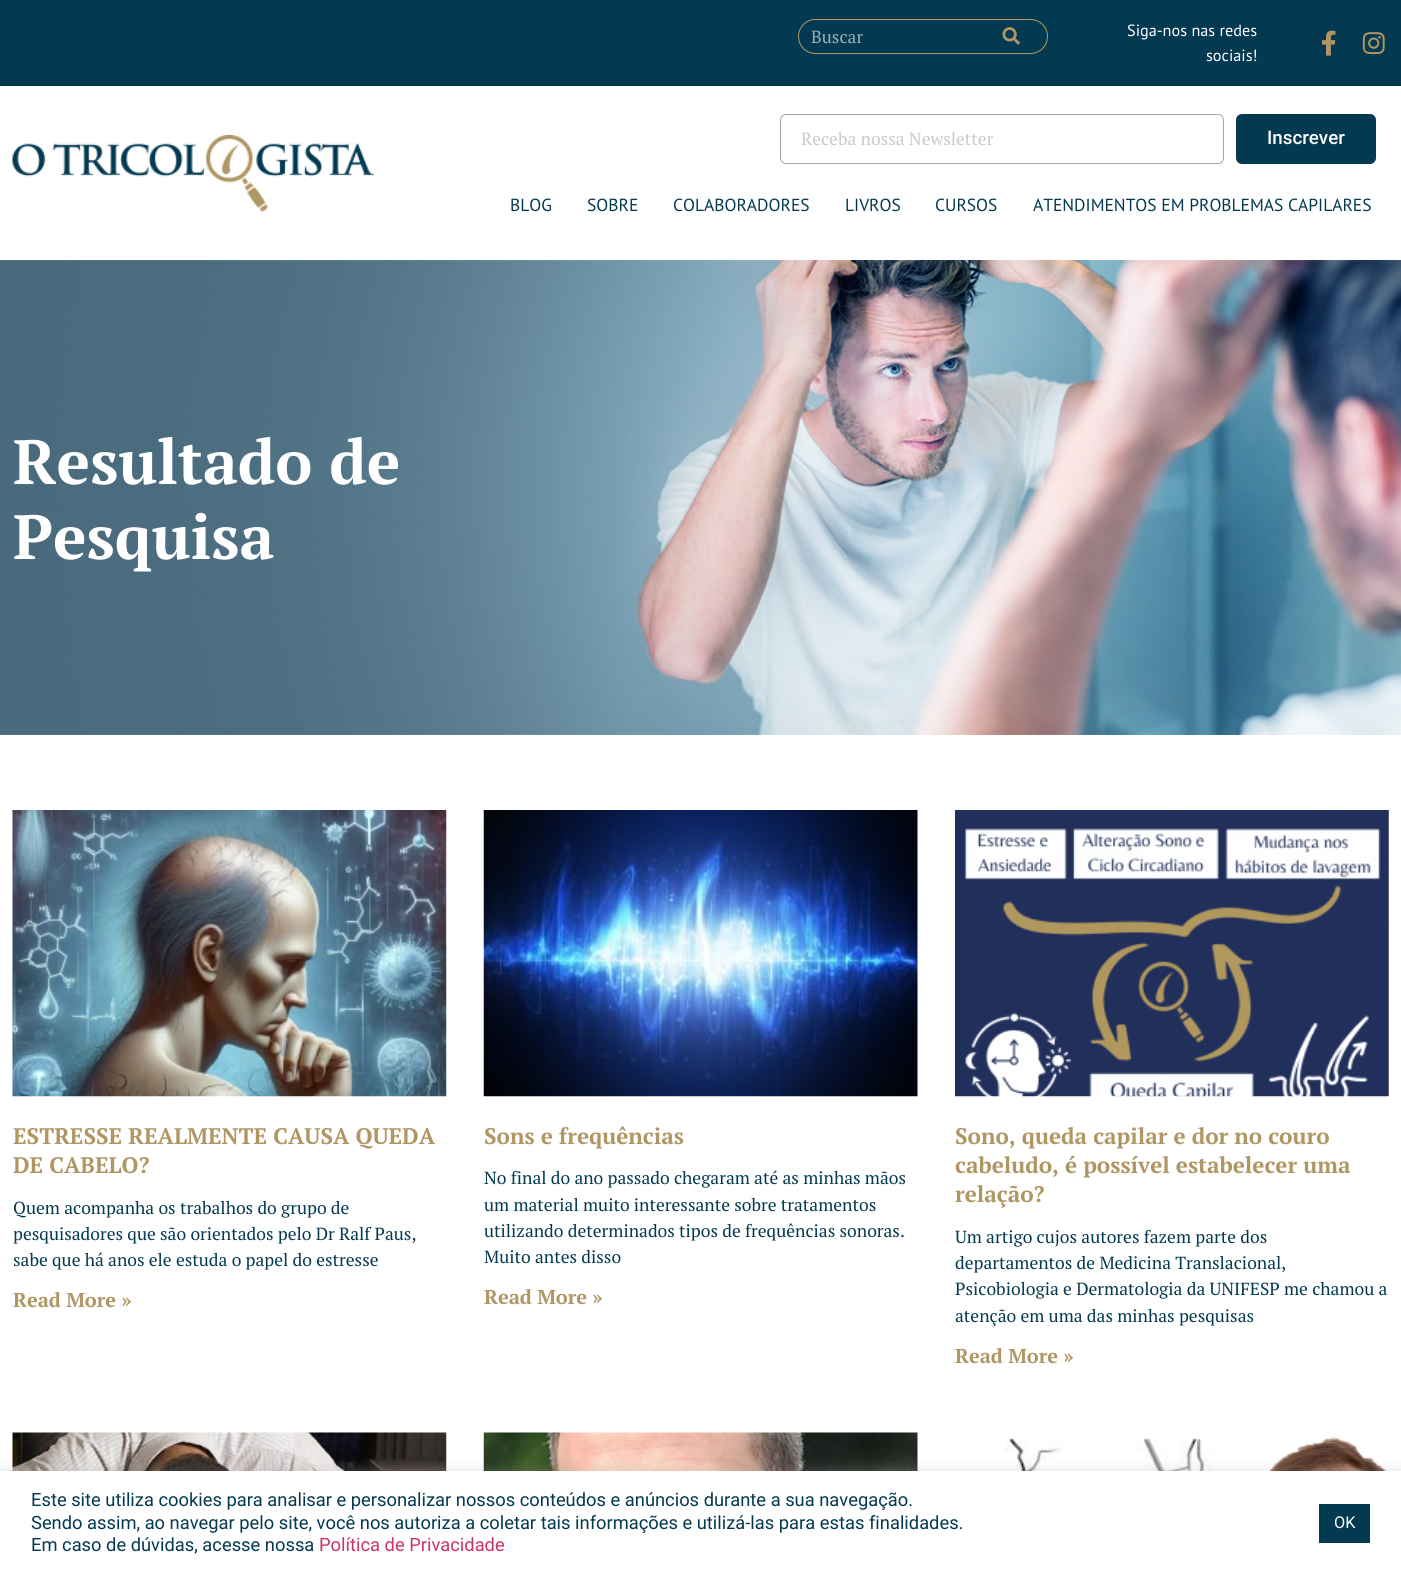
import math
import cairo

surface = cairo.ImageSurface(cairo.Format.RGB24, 1401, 1573)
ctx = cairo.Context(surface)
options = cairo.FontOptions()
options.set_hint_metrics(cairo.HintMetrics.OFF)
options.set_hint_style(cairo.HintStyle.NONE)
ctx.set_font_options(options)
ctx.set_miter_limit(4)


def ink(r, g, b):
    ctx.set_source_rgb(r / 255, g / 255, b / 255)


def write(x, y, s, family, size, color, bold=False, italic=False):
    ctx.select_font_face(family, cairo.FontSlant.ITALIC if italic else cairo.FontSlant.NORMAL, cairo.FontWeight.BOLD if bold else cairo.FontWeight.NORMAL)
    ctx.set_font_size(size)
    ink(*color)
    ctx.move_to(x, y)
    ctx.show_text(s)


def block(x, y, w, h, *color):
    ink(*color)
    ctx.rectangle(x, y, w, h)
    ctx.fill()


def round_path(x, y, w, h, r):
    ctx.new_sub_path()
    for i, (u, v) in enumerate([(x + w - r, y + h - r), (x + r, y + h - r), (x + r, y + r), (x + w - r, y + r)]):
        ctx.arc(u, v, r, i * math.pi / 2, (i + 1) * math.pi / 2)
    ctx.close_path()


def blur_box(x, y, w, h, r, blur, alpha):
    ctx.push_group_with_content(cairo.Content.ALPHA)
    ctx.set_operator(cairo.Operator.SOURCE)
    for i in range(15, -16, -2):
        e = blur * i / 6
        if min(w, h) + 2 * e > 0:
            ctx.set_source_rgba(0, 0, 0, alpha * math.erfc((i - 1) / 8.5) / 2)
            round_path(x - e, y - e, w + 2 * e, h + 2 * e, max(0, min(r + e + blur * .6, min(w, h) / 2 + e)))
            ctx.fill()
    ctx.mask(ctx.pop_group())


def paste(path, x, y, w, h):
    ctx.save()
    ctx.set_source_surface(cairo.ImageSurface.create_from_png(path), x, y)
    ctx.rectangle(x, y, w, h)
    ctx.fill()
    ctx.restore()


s1 = dict(family="PT Serif", size=17.5, color=(155, 176, 185))
s2 = dict(family="PT Sans", size=16.25, color=(255, 255, 255))
s3 = dict(family="PT Serif", size=17.5, color=(202, 202, 202))
s4 = dict(family="Roboto Medium", size=18.75, color=(255, 255, 255))
s5 = dict(family="PT Sans", size=17.5, color=(4, 58, 81))
s6 = dict(family="PT Serif", size=62.5, color=(255, 255, 255), bold=True)
s7 = dict(family="PT Serif", size=22.5, color=(175, 150, 98), bold=True)
s8 = dict(family="PT Serif", size=17.5, color=(4, 58, 81))
s9 = dict(family="PT Serif", size=20, color=(175, 150, 98), bold=True)
s10 = dict(family="Roboto", size=18.33, color=(4, 58, 81))
s11 = dict(family="Roboto", size=18.33, color=(204, 51, 102))
s12 = dict(family="Roboto", size=16.25, color=(255, 255, 255))

ink(255, 255, 255)
ctx.paint()
block(0, 0, 1401, 86, 4, 58, 81)
round_path(798.5, 19.5, 249, 34, 17)
ink(175, 150, 98)
ctx.set_line_width(1)
ctx.stroke()
write(811, 43, "Buscar", **s1)
paste("pic1.png", 1002, 27, 18, 18)
write(1127, 36, "Siga-nos nas redes", **s2)
write(1206, 61, "sociais!", **s2)
paste("pic2.png", 1322, 30, 14, 26)
paste("pic3.png", 1362, 32, 23, 23)
paste("pic4.png", 12, 135, 362, 77)
round_path(780.5, 114.5, 443, 49, 5.5)
ink(167, 167, 167)
ctx.stroke()
write(801, 145, "Receba nossa Newsletter", **s3)
ink(4, 58, 81)
round_path(1236, 114, 140, 50, 6)
ctx.fill()
write(1267, 144, "Inscrever", **s4)
write(510, 211, "BLOG", **s5)
write(587, 211, "SOBRE", **s5)
write(673, 211, "COLABORADORES", **s5)
write(845, 211, "LIVROS", **s5)
write(935, 211, "CURSOS", **s5)
write(1033, 211, "ATENDIMENTOS EM PROBLEMAS CAPILARES", **s5)
paste("pic5.png", 0, 260, 1401, 475)
write(13, 484, "Resultado de", **s6)
write(13, 559, "Pesquisa", **s6)
paste("pic6.png", 12, 810, 435, 287)
write(13, 1144, "ESTRESSE REALMENTE CAUSA QUEDA", **s7)
write(13, 1173, "DE CABELO?", **s7)
write(13, 1214, "Quem acompanha os trabalhos do grupo de", **s8)
write(13, 1240, "pesquisadores que são orientados pelo Dr Ralf Paus,", **s8)
write(13, 1266, "sabe que há anos ele estuda o papel do estresse", **s8)
write(13, 1307, "Read More »", **s9)
paste("pic7.png", 483, 810, 435, 287)
write(484, 1144, "Sons e frequências", **s7)
write(484, 1184, "No final do ano passado chegaram até as minhas mãos", **s8)
write(484, 1211, "um material muito interessante sobre tratamentos", **s8)
write(484, 1237, "utilizando determinados tipos de frequências sonoras.", **s8)
write(484, 1263, "Muito antes disso", **s8)
write(484, 1304, "Read More »", **s9)
paste("pic8.png", 955, 810, 434, 287)
write(955, 1144, "Sono, queda capilar e dor no couro", **s7)
write(955, 1173, "cabeludo, é possível estabelecer uma", **s7)
write(955, 1202, "relação?", **s7)
write(955, 1243, "Um artigo cujos autores fazem parte dos", **s8)
write(955, 1269, "departamentos de Medicina Translacional,", **s8)
write(955, 1295, "Psicobiologia e Dermatologia da UNIFESP me chamou a", **s8)
write(955, 1322, "atenção em uma das minhas pesquisas", **s8)
write(955, 1363, "Read More »", **s9)
paste("pic9.png", 12, 1432, 435, 39)
paste("pic10.png", 483, 1432, 435, 39)
paste("pic11.png", 955, 1437, 431, 34)
ink(172, 171, 171)
blur_box(0, 1470, 1401, 103, 0, 6, 0.3)
block(0, 1471, 1401, 102, 255, 255, 255)
write(31, 1506, "Este site utiliza cookies para analisar e personalizar nossos conteúdos e anúncios durante a sua navegação.", **s10)
write(31, 1529, "Sendo assim, ao navegar pelo site, você nos autoriza a coletar tais informações e utilizá-las para estas finalidades.", **s10)
write(31, 1551, "Em caso de dúvidas, acesse nossa", **s10)
write(319, 1551, "Política de Privacidade", **s11)
block(1319, 1504, 51, 39, 4, 58, 81)
write(1334, 1528, "OK", **s12)
surface.write_to_png("screenshot.png")
